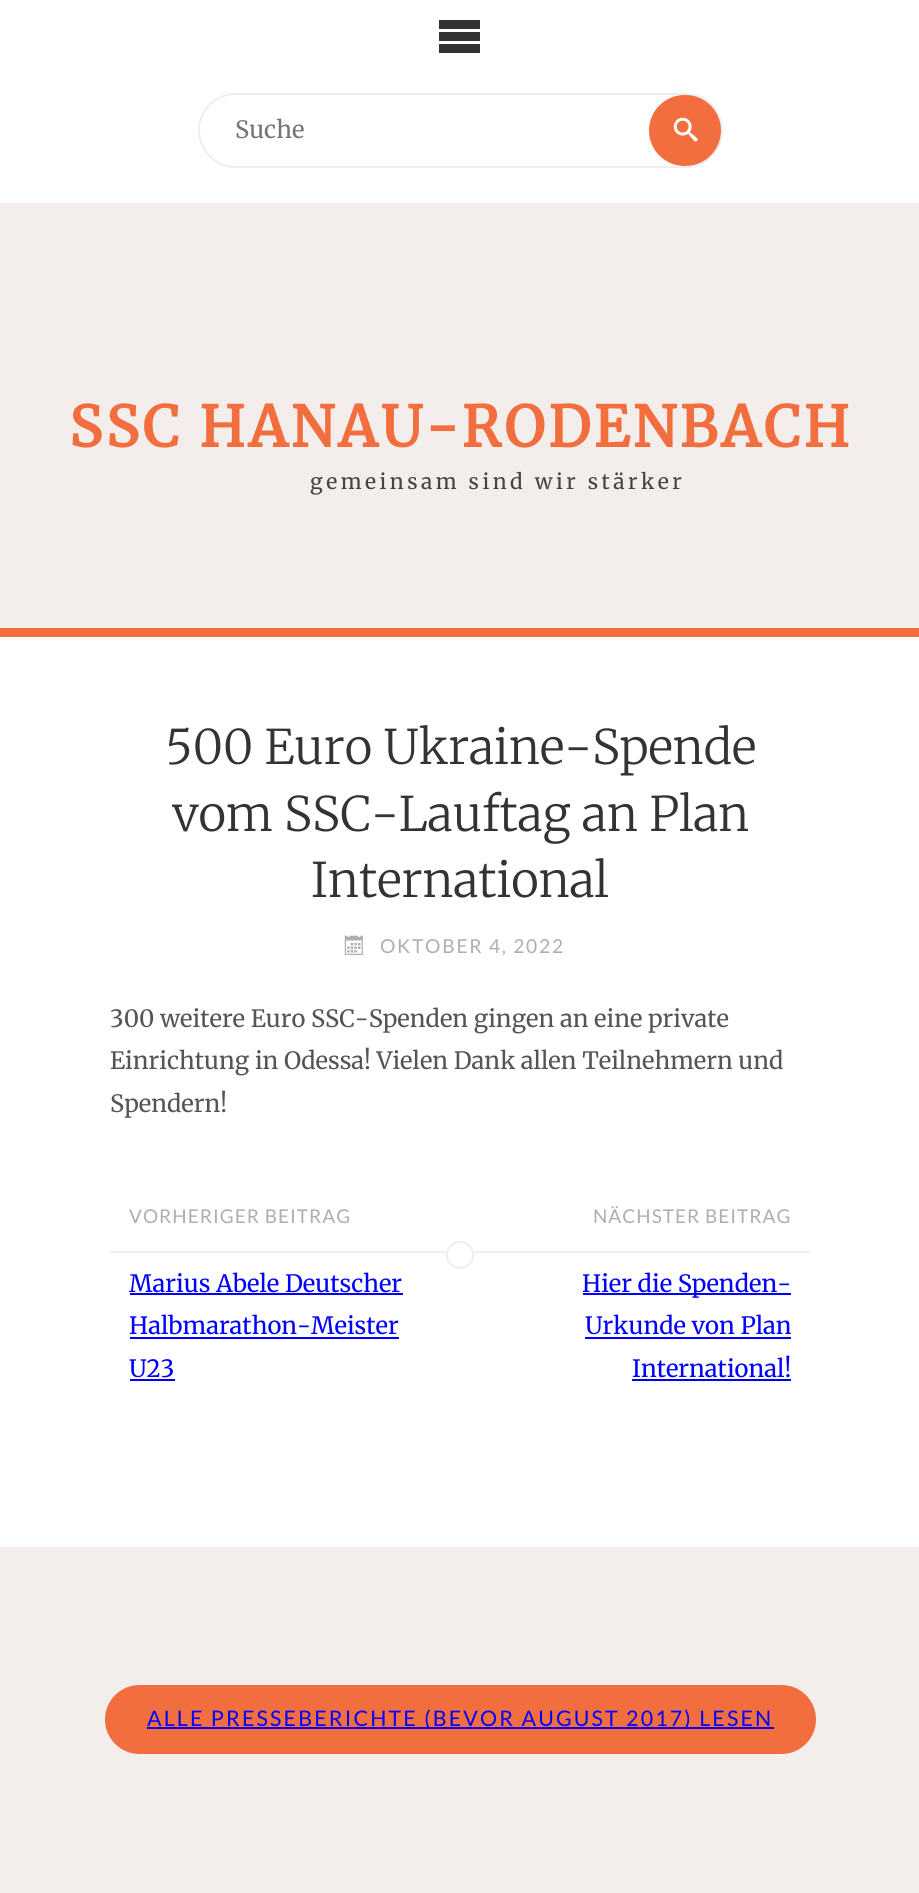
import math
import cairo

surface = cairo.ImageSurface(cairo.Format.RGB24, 919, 1893)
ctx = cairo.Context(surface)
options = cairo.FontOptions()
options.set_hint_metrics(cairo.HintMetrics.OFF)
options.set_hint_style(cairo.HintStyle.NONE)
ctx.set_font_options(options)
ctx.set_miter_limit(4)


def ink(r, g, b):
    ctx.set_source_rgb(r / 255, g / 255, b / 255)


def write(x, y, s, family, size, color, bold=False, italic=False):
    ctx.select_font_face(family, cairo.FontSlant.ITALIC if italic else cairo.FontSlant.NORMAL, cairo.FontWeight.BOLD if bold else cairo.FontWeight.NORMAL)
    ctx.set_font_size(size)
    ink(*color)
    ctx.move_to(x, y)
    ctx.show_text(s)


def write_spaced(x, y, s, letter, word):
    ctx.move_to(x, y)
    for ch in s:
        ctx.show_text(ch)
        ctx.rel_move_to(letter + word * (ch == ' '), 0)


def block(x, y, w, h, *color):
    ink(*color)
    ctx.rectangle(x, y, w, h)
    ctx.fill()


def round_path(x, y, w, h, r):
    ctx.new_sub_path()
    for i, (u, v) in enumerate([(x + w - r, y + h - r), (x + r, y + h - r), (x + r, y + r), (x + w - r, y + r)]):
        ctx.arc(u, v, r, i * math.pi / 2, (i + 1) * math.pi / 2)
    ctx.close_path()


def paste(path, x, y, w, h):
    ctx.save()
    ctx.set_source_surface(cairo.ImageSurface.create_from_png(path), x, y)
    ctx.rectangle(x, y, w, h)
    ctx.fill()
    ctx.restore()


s1 = dict(family="Merriweather", size=23.8, color=(117, 117, 117))
s2 = dict(family="Merriweather Light", size=47.6, color=(51, 51, 51))
s3 = dict(family="Merriweather", size=23.8, color=(85, 85, 85))
s4 = dict(family="Merriweather", size=23.8, color=(0, 0, 255))

ink(243, 238, 235)
ctx.paint()
block(0, 0, 919, 203, 255, 255, 255)
ink(51, 51, 51)
ctx.new_path()
ctx.move_to(439, 20)
ctx.line_to(480, 20)
ctx.line_to(480, 29)
ctx.line_to(439, 29)
ctx.close_path()
ctx.move_to(439, 32)
ctx.line_to(480, 32)
ctx.line_to(480, 41)
ctx.line_to(439, 41)
ctx.close_path()
ctx.move_to(439, 44)
ctx.line_to(480, 44)
ctx.line_to(480, 53)
ctx.line_to(439, 53)
ctx.close_path()
ctx.fill()
round_path(199, 94, 523, 73, 36.5)
ink(238, 238, 238)
ctx.stroke()
write(235, 138, "Suche", **s1)
ink(242, 110, 63)
round_path(649, 95, 72, 71, 35.5)
ctx.fill()
paste("pic1.png", 673, 117, 25, 25)
ctx.select_font_face("Merriweather", cairo.FontSlant.NORMAL, cairo.FontWeight.BOLD)
ctx.set_font_size(56)
write_spaced(69, 447, "SSC HANAU-RODENBACH", 3.5, 0)
ctx.select_font_face("Merriweather")
ctx.set_font_size(21)
ink(68, 68, 68)
write_spaced(310, 489, "gemeinsam sind wir stärker", 3.5, 0)
block(0, 637, 919, 910, 255, 255, 255)
block(0, 628, 919, 9, 242, 110, 63)
write(165, 764, "500 Euro Ukraine-Spende", **s2)
write(172, 831, "vom SSC-Lauftag an Plan", **s2)
write(311, 897, "International", **s2)
paste("pic2.png", 344, 935, 19, 20)
ctx.select_font_face("Lato")
ctx.set_font_size(19.25)
ink(174, 174, 174)
write_spaced(380, 953, "OKTOBER 4, 2022", 1.75, 0)
write(110, 1027, "300 weitere Euro SSC-Spenden gingen an eine private", **s3)
write(110, 1069, "Einrichtung in Odessa! Vielen Dank allen Teilnehmern und", **s3)
write(110, 1112, "Spendern!", **s3)
ctx.select_font_face("Lato")
ctx.set_font_size(19)
ink(174, 174, 174)
write_spaced(129, 1223, "VORHERIGER BEITRAG", 1, 0)
block(110, 1251, 337, 2, 238, 238, 238)
ink(255, 255, 255)
ctx.new_path()
ctx.move_to(460, 1241)
ctx.line_to(460, 1269)
ctx.curve_to(452.5, 1269, 446, 1262.5, 446, 1255)
ctx.curve_to(446, 1247.5, 452.5, 1241, 460, 1241)
ctx.close_path()
ctx.fill()
block(473, 1251, 337, 2, 238, 238, 238)
ctx.save()
ctx.rectangle(110, 1199, 350, 205)
ctx.clip()
ctx.arc(460, 1255, 13, 0, 2 * math.pi)
ctx.stroke()
ctx.restore()
write(129, 1292, "Marius Abele Deutscher", **s4)
block(130, 1293, 273, 2, 0, 0, 255)
write(129, 1334, "Halbmarathon-Meister", **s4)
block(130, 1337, 269, 2, 0, 0, 255)
write(129, 1377, "U23", **s4)
block(130, 1379, 45, 2, 0, 0, 255)
ctx.select_font_face("Lato")
ctx.set_font_size(19)
ink(174, 174, 174)
write_spaced(593, 1223, "NÄCHSTER BEITRAG", 1, 0)
ink(255, 255, 255)
ctx.new_path()
ctx.move_to(460, 1241)
ctx.curve_to(467.5, 1241, 474, 1247.5, 474, 1255)
ctx.curve_to(474, 1262.5, 467.5, 1269, 460, 1269)
ctx.close_path()
ctx.fill()
ctx.save()
ctx.rectangle(460, 1199, 350, 205)
ctx.clip()
ctx.arc(460, 1255, 13, 0, 2 * math.pi)
ink(238, 238, 238)
ctx.stroke()
ctx.restore()
block(583, 1293, 208, 2, 0, 0, 255)
write(582, 1292, "Hier die Spenden-", **s4)
write(585, 1334, "Urkunde von Plan", **s4)
block(585, 1337, 206, 2, 0, 0, 255)
write(632, 1377, "International!", **s4)
block(632, 1379, 159, 2, 0, 0, 255)
ink(242, 110, 63)
round_path(105, 1685, 711, 69, 34.5)
ctx.fill()
block(147, 1727, 627, 2, 0, 0, 255)
ctx.select_font_face("Lato")
ctx.set_font_size(21.4)
write_spaced(147, 1726, "ALLE PRESSEBERICHTE (BEVOR AUGUST 2017) LESEN", 2.15, 0)
surface.write_to_png("screenshot.png")
